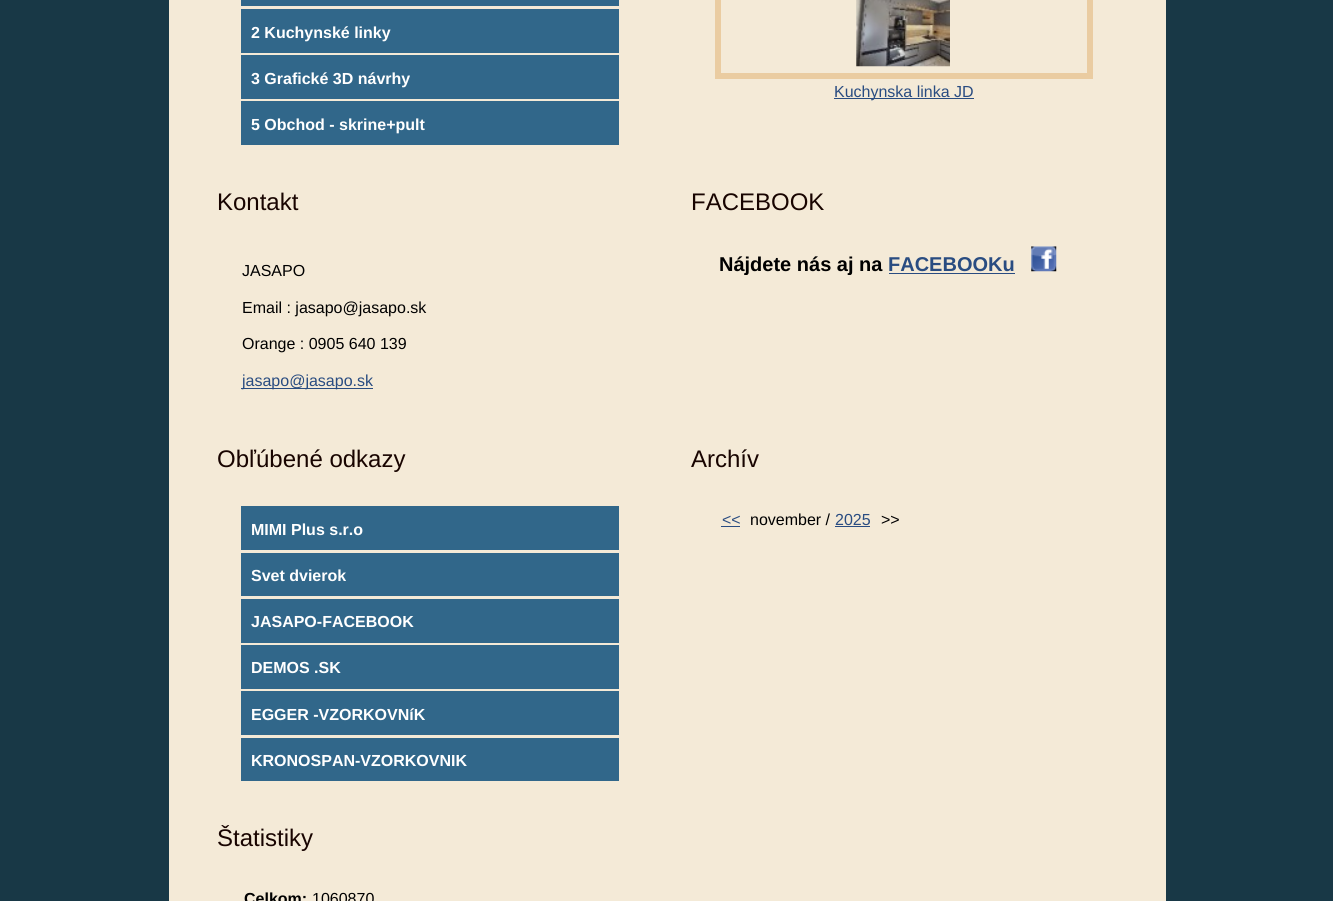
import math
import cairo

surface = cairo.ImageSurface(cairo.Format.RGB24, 1333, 901)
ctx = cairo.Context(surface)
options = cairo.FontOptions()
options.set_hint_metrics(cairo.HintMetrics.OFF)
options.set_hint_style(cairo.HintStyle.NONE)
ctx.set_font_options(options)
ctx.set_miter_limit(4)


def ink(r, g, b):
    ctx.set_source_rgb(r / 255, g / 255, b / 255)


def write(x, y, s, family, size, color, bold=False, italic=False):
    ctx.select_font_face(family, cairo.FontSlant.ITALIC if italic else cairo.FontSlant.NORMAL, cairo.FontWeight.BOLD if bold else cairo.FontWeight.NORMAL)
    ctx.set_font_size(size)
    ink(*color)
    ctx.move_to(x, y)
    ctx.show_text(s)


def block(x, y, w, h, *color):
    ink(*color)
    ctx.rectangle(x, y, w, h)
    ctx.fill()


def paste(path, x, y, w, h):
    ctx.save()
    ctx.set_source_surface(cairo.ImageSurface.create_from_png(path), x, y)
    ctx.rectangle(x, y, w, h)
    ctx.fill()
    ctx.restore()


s1 = dict(family="Liberation Sans", size=16, color=(255, 255, 255), bold=True)
s2 = dict(family="Liberation Sans", size=16, color=(41, 76, 129))
s3 = dict(family="Liberation Sans", size=24, color=(24, 4, 0))
s4 = dict(family="Liberation Sans", size=16, color=(0, 0, 0))
s5 = dict(family="Liberation Sans", size=20, color=(0, 0, 0), bold=True)
s6 = dict(family="Liberation Sans", size=20, color=(41, 76, 129), bold=True)
s7 = dict(family="Liberation Sans", size=16, color=(0, 0, 0), bold=True)

ink(24, 56, 70)
ctx.paint()
block(169, 0, 997, 901, 244, 234, 215)
block(241, 0, 378, 6, 49, 103, 138)
block(241, 9, 378, 44, 49, 103, 138)
write(251, 38, "2 Kuchynské linky", **s1)
block(241, 55, 378, 44, 49, 103, 138)
write(251, 84, "3 Grafické 3D návrhy", **s1)
block(241, 101, 378, 44, 49, 103, 138)
write(251, 130, "5 Obchod - skrine+pult", **s1)
ctx.rectangle(718, -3, 372, 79)
ink(234, 204, 161)
ctx.set_line_width(6)
ctx.stroke()
paste("pic1.png", 856, 0, 94, 67)
block(834, 98, 140, 1, 41, 76, 129)
write(834, 97, "Kuchynska linka JD", **s2)
write(217, 210, "Kontakt", **s3)
write(242, 276, "JASAPO", **s4)
write(242, 313, "Email : jasapo@jasapo.sk", **s4)
write(242, 349, "Orange : 0905 640 139", **s4)
block(241, 388, 132, 1, 41, 76, 129)
write(242, 386, "jasapo@jasapo.sk", **s2)
write(691, 210, "FACEBOOK", **s3)
ctx.save()
ctx.rectangle(690, 246, 428, 29)
ctx.clip()
write(719, 271, "Nájdete nás aj na", **s5)
ctx.restore()
write(888, 271, "FACEBOOKu", **s6)
block(889, 273, 126, 1, 41, 76, 129)
paste("pic2.png", 1031, 246, 26, 26)
write(217, 467, "Obľúbené odkazy", **s3)
block(241, 506, 378, 44, 49, 103, 138)
write(251, 535, "MIMI Plus s.r.o", **s1)
block(241, 553, 378, 43, 49, 103, 138)
write(251, 581, "Svet dvierok", **s1)
block(241, 599, 378, 44, 49, 103, 138)
write(251, 627, "JASAPO-FACEBOOK", **s1)
block(241, 645, 378, 44, 49, 103, 138)
write(251, 673, "DEMOS .SK", **s1)
block(241, 691, 378, 44, 49, 103, 138)
write(251, 720, "EGGER -VZORKOVNíK", **s1)
block(241, 738, 378, 43, 49, 103, 138)
write(251, 766, "KRONOSPAN-VZORKOVNIK", **s1)
write(691, 467, "Archív", **s3)
write(722, 525, "<<", **s2)
block(721, 526, 19, 1, 41, 76, 129)
write(750, 525, "november /", **s4)
write(835, 525, "2025", **s2)
block(835, 526, 35, 1, 41, 76, 129)
write(881, 525, ">>", **s4)
write(217, 846, "Štatistiky", **s3)
write(244, 904, "Celkom:", **s7)
write(312, 904, "1060870", **s4)
surface.write_to_png("screenshot.png")
